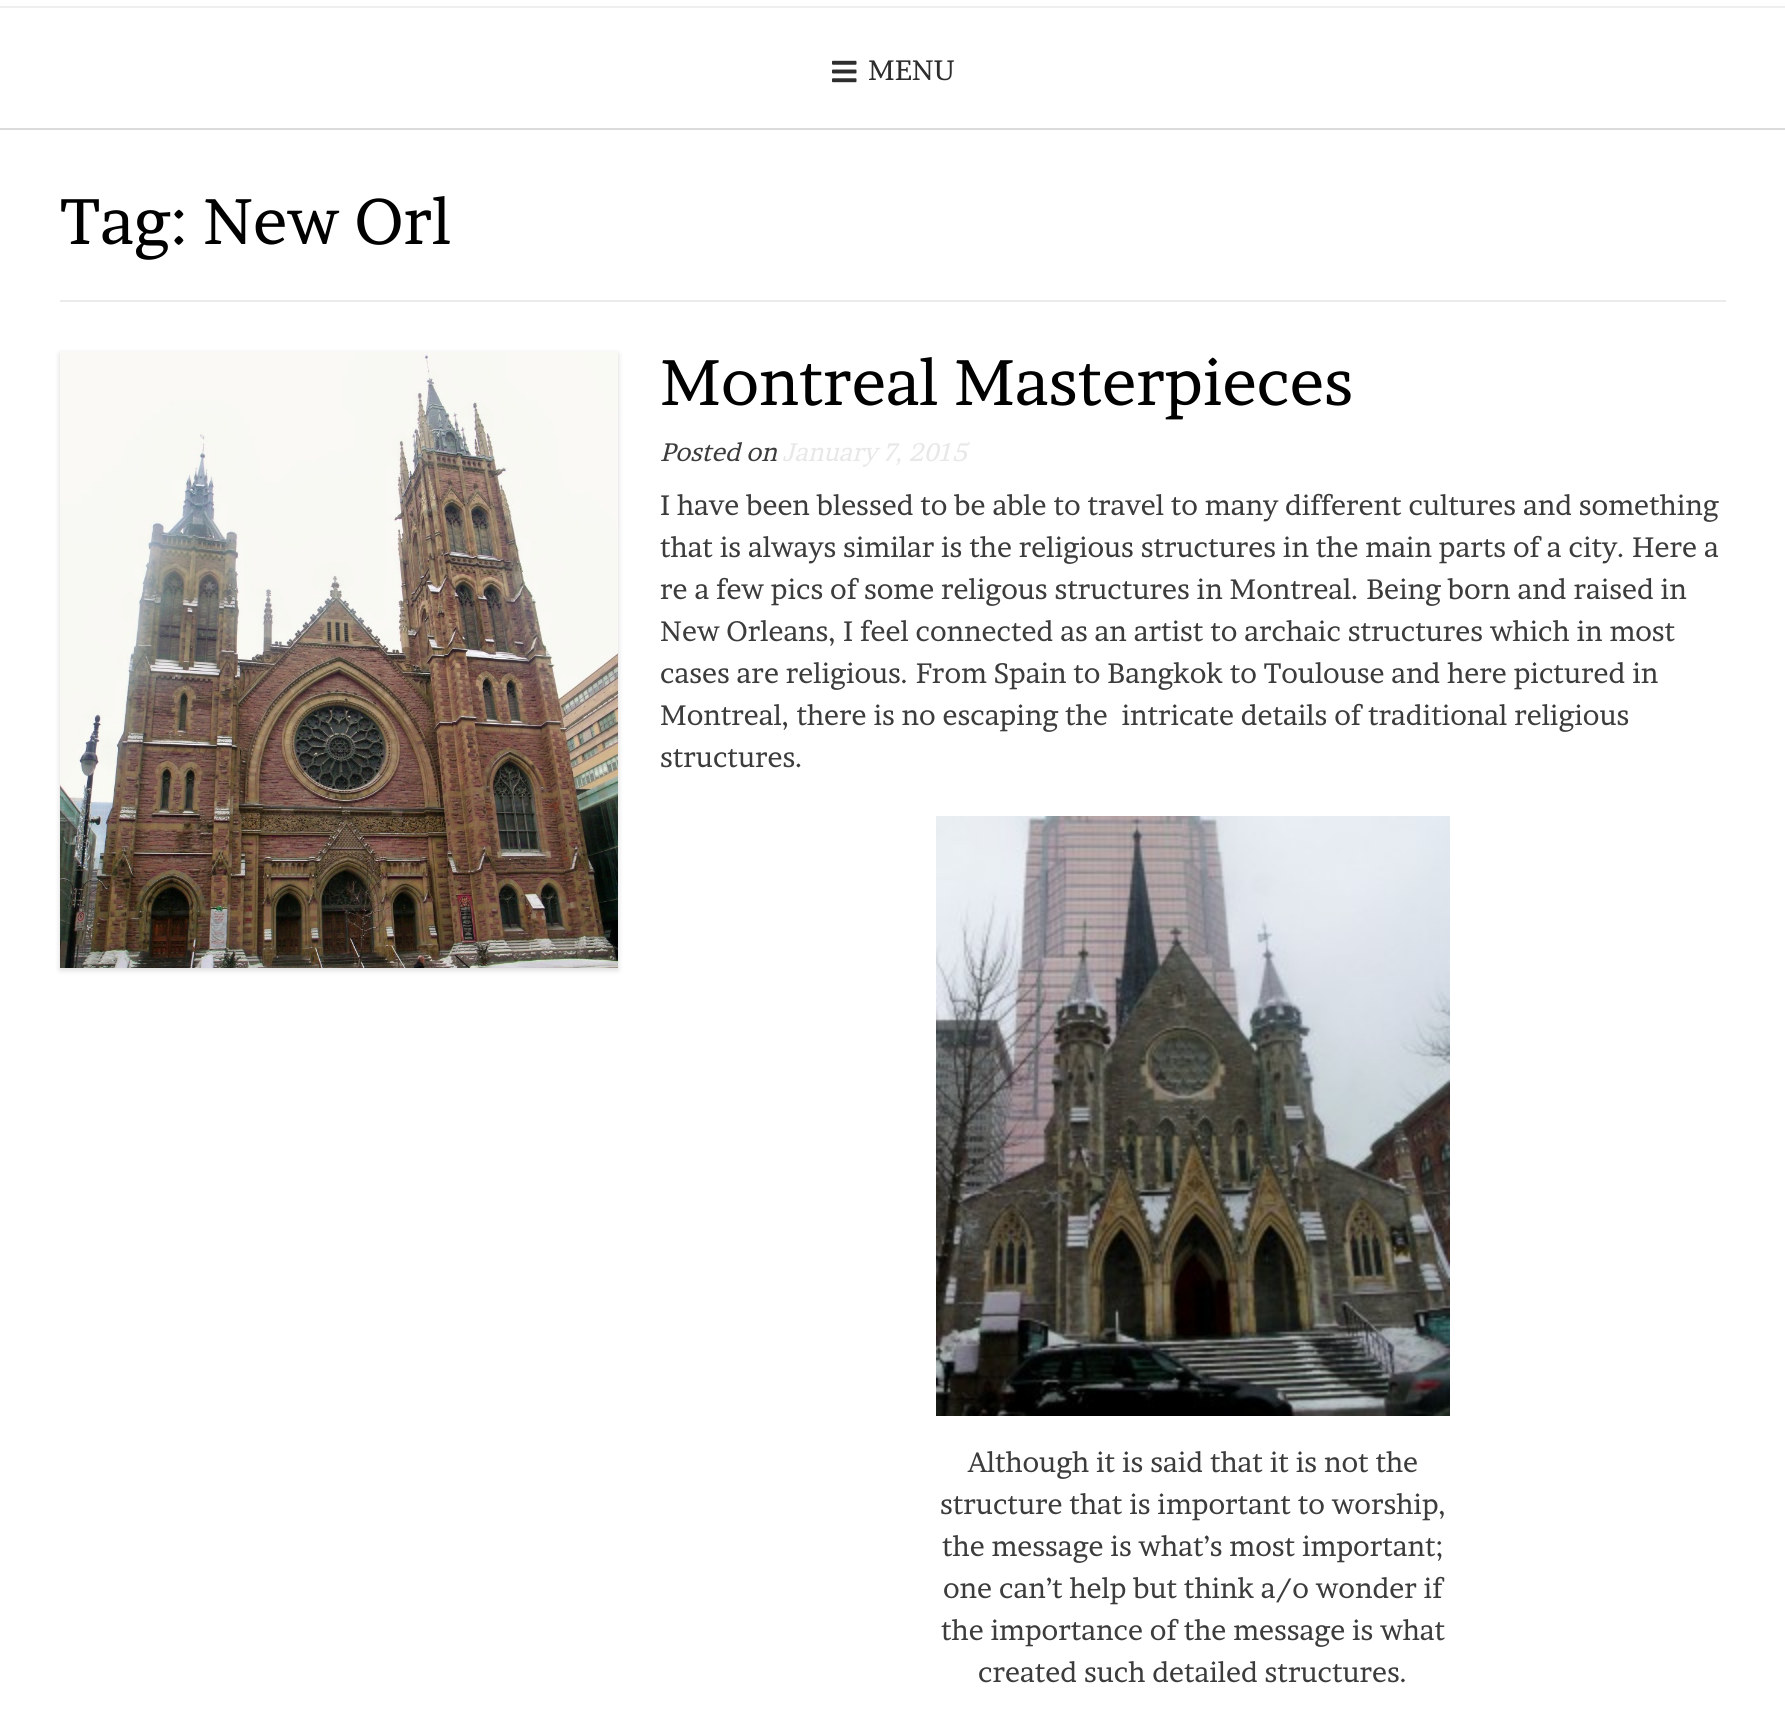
import math
import cairo

surface = cairo.ImageSurface(cairo.Format.RGB24, 1785, 1726)
ctx = cairo.Context(surface)
options = cairo.FontOptions()
options.set_hint_metrics(cairo.HintMetrics.OFF)
options.set_hint_style(cairo.HintStyle.NONE)
ctx.set_font_options(options)
ctx.set_miter_limit(4)


def ink(r, g, b):
    ctx.set_source_rgb(r / 255, g / 255, b / 255)


def write(x, y, s, family, size, color, bold=False, italic=False):
    ctx.select_font_face(family, cairo.FontSlant.ITALIC if italic else cairo.FontSlant.NORMAL, cairo.FontWeight.BOLD if bold else cairo.FontWeight.NORMAL)
    ctx.set_font_size(size)
    ink(*color)
    ctx.move_to(x, y)
    ctx.show_text(s)


def block(x, y, w, h, *color):
    ink(*color)
    ctx.rectangle(x, y, w, h)
    ctx.fill()


def round_path(x, y, w, h, r):
    ctx.new_sub_path()
    for i, (u, v) in enumerate([(x + w - r, y + h - r), (x + r, y + h - r), (x + r, y + r), (x + w - r, y + r)]):
        ctx.arc(u, v, r, i * math.pi / 2, (i + 1) * math.pi / 2)
    ctx.close_path()


def blur_box(x, y, w, h, r, blur, alpha):
    ctx.push_group_with_content(cairo.Content.ALPHA)
    ctx.set_operator(cairo.Operator.SOURCE)
    for i in range(15, -16, -2):
        e = blur * i / 6
        if min(w, h) + 2 * e > 0:
            ctx.set_source_rgba(0, 0, 0, alpha * math.erfc((i - 1) / 8.5) / 2)
            round_path(x - e, y - e, w + 2 * e, h + 2 * e, max(0, min(r + e + blur * .6, min(w, h) / 2 + e)))
            ctx.fill()
    ctx.mask(ctx.pop_group())


def paste(path, x, y, w, h):
    ctx.save()
    ctx.set_source_surface(cairo.ImageSurface.create_from_png(path), x, y)
    ctx.rectangle(x, y, w, h)
    ctx.fill()
    ctx.restore()


s1 = dict(family="Brawler", size=28, color=(45, 45, 45))
s2 = dict(family="Brawler", size=64, color=(0, 0, 0))
s3 = dict(family="Brawler", size=25.25, color=(60, 60, 60), italic=True)
s4 = dict(family="Brawler", size=25.25, color=(232, 232, 232), italic=True)
s5 = dict(family="Brawler", size=28, color=(60, 60, 60))

ink(255, 255, 255)
ctx.paint()
block(0, 128, 1785, 2, 219, 219, 219)
block(0, 6, 1785, 2, 239, 239, 239)
paste("pic1.png", 832, 60, 25, 23)
write(868, 80, "MENU", **s1)
block(60, 300, 1666, 2, 235, 235, 235)
write(60, 244, "Tag: New Orl", **s2)
ink(0, 0, 0)
blur_box(60, 354, 558, 616, 0, 3, 0.15)
paste("pic2.png", 60, 352, 558, 616)
write(660, 405, "Montreal Masterpieces", **s2)
write(660, 461, "Posted on", **s3)
write(782, 461, "January 7, 2015", **s4)
write(660, 515, "I have been blessed to be able to travel to many different cultures and something", **s5)
write(660, 557, "that is always similar is the religious structures in the main parts of a city. Here a", **s5)
write(660, 599, "re a few pics of some religous structures in Montreal. Being born and raised in", **s5)
write(660, 641, "New Orleans, I feel connected as an artist to archaic structures which in most", **s5)
write(660, 683, "cases are religious. From Spain to Bangkok to Toulouse and here pictured in", **s5)
write(660, 725, "Montreal, there is no escaping the  intricate details of traditional religious", **s5)
write(660, 767, "structures.", **s5)
paste("pic3.png", 936, 816, 514, 600)
write(968, 1472, "Although it is said that it is not the", **s5)
write(940, 1514, "structure that is important to worship,", **s5)
write(942, 1556, "the message is what’s most important;", **s5)
write(943, 1598, "one can’t help but think a/o wonder if", **s5)
write(941, 1640, "the importance of the message is what", **s5)
write(978, 1682, "created such detailed structures.", **s5)
surface.write_to_png("screenshot.png")
